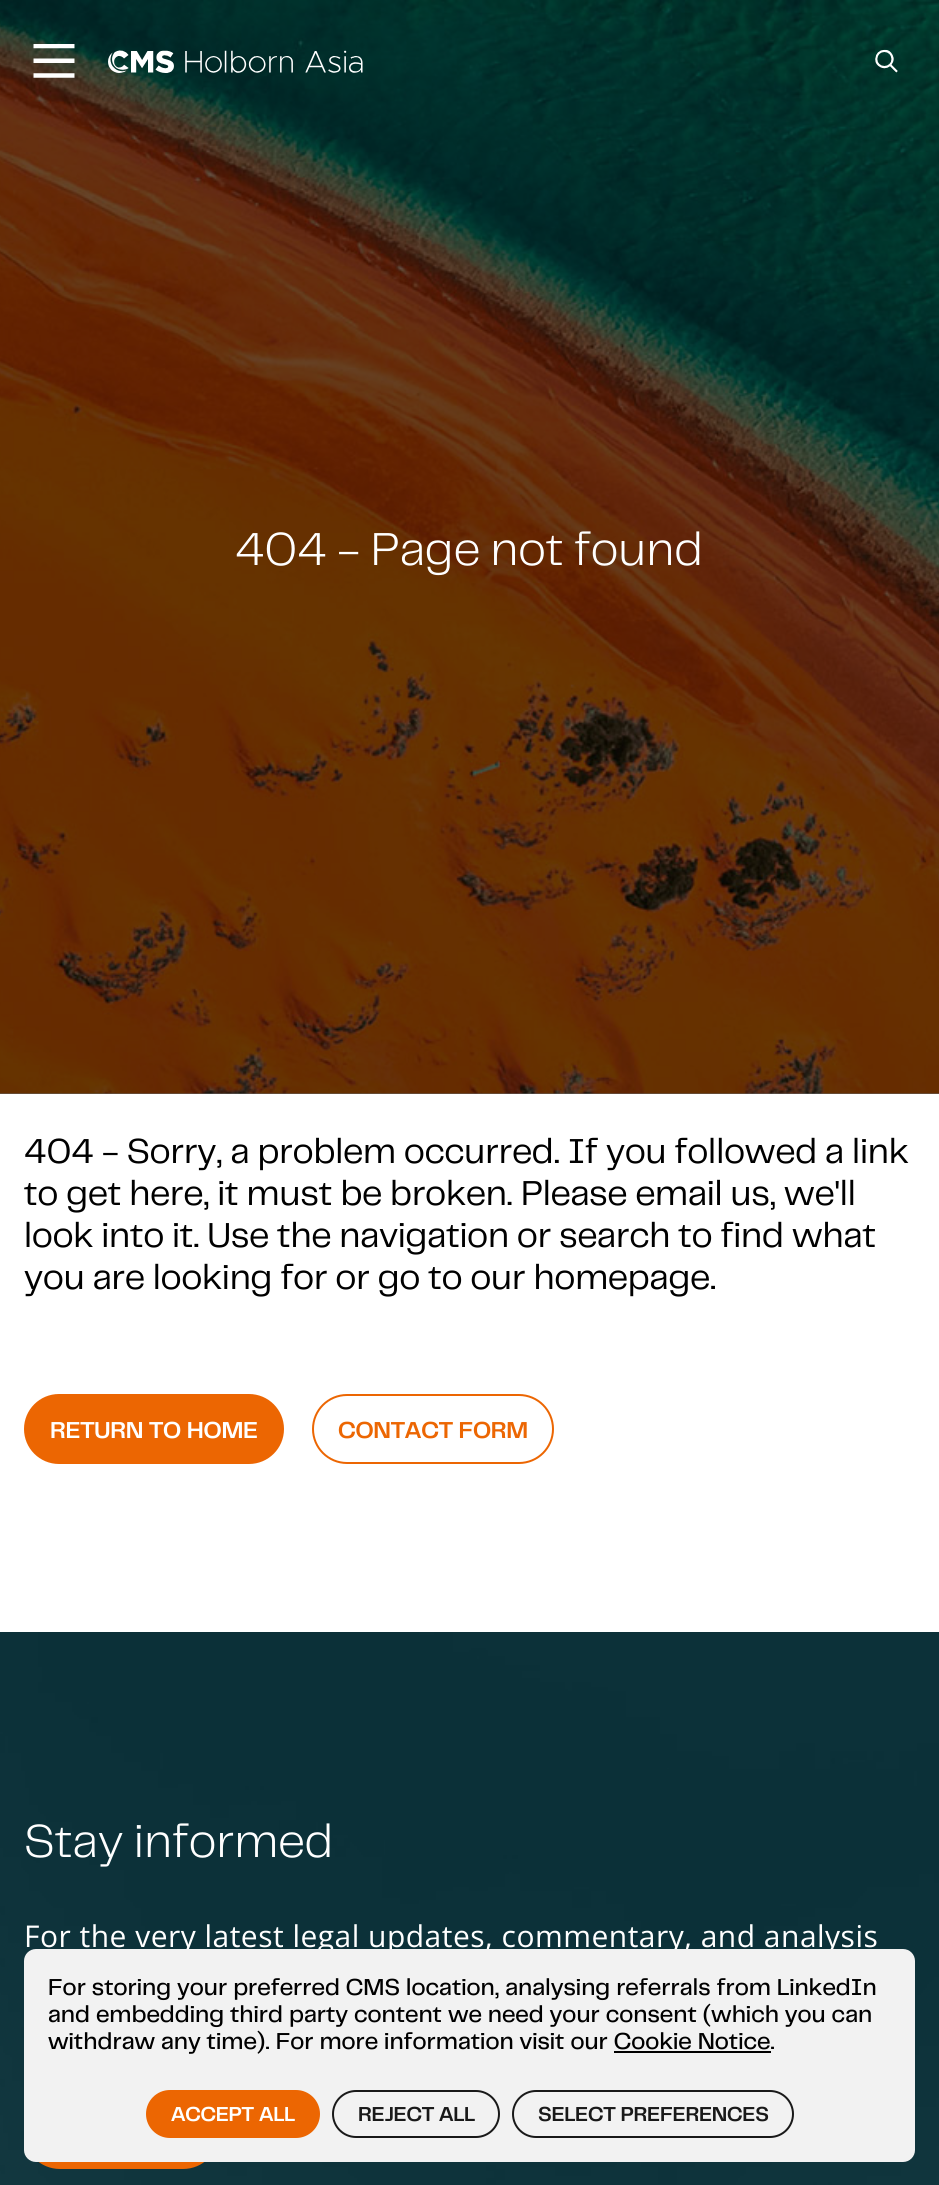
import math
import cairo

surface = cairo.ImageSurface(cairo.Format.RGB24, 939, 2185)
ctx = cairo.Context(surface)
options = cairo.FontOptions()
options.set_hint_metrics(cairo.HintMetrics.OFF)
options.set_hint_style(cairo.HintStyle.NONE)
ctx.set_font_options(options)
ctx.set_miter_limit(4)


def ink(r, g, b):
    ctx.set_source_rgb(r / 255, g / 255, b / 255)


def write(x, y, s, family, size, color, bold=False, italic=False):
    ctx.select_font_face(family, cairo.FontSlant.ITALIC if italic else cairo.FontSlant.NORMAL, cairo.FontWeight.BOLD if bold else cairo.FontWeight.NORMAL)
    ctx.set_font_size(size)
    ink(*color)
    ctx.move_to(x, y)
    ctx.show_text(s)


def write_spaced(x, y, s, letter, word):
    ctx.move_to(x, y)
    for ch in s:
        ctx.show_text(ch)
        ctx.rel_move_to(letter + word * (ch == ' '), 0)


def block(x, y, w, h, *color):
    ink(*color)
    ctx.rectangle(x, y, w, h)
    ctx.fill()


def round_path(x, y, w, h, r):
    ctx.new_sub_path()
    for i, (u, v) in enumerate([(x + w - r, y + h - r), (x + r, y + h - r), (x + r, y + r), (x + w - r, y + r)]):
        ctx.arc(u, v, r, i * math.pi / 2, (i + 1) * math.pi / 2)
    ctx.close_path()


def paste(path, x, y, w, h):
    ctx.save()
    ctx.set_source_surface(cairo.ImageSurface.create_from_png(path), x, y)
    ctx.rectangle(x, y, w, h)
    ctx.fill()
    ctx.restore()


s1 = dict(family="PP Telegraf", size=36, color=(0, 0, 0))
s2 = dict(family="PP Telegraf Medium", size=24, color=(0, 0, 0))

ink(255, 255, 255)
ctx.paint()
block(0, 1093, 939, 1, 102, 102, 102)
paste("pic4.png", 0, 0, 939, 1094)
paste("pic1.png", 33, 44, 42, 34)
paste("pic2.png", 108, 50, 255, 23)
paste("pic3.png", 875, 49, 23, 24)
ctx.select_font_face("PP Telegraf Light")
ctx.set_font_size(48)
ink(255, 255, 255)
write_spaced(235, 565, "404 - Page not found", 0.48, 0)
write(24, 1163, "404 - Sorry, a problem occurred. If you followed a link", **s1)
write(24, 1205, "to get here, it must be broken. Please email us, we'll", **s1)
write(24, 1247, "look into it. Use the navigation or search to find what", **s1)
write(24, 1289, "you are looking for or go to our homepage.", **s1)
ink(236, 102, 2)
round_path(25, 1395, 258, 68, 34)
ctx.fill_preserve()
ctx.stroke()
ctx.select_font_face("PP Telegraf SemiBold")
ctx.set_font_size(24)
ink(255, 255, 255)
write_spaced(50, 1438, "RETURN TO HOME", -0.25, 0)
round_path(313, 1395, 240, 68, 34)
ink(236, 102, 2)
ctx.stroke()
write_spaced(338, 1438, "CONTACT FORM", -0.25, 0)
paste("pic5.png", 0, 1632, 939, 553)
ctx.select_font_face("PP Telegraf Light")
ctx.set_font_size(48)
ink(255, 255, 255)
write_spaced(24, 1857, "Stay informed", 0.48, 0)
ctx.select_font_face("Open Sans")
ctx.set_font_size(30)
write_spaced(24, 1947, "For the very latest legal updates, commentary, and analysis", 0.48, 0)
ink(236, 102, 2)
round_path(25, 2098, 193, 70, 35)
ctx.fill_preserve()
ctx.stroke()
ink(242, 242, 242)
round_path(24, 1949, 891, 213, 12)
ctx.fill()
write(48, 1995, "For storing your preferred CMS location, analysing referrals from LinkedIn", **s2)
write(48, 2022, "and embedding third party content we need your consent (which you can", **s2)
write(48, 2049, "withdraw any time). For more information visit our Cookie Notice.", **s2)
block(614, 2051, 157, 2, 0, 0, 0)
ink(236, 102, 2)
round_path(147, 2091, 172, 46, 23)
ctx.fill_preserve()
ctx.stroke()
ctx.select_font_face("PP Telegraf SemiBold")
ctx.set_font_size(21)
ink(255, 255, 255)
write_spaced(171, 2121, "ACCEPT ALL", -0.25, 0)
round_path(333, 2091, 166, 46, 23)
ink(25, 25, 25)
ctx.stroke()
write_spaced(358, 2121, "REJECT ALL", -0.25, 0)
round_path(513, 2091, 280, 46, 23)
ctx.stroke()
write_spaced(538, 2121, "SELECT PREFERENCES", -0.25, 0)
surface.write_to_png("screenshot.png")
